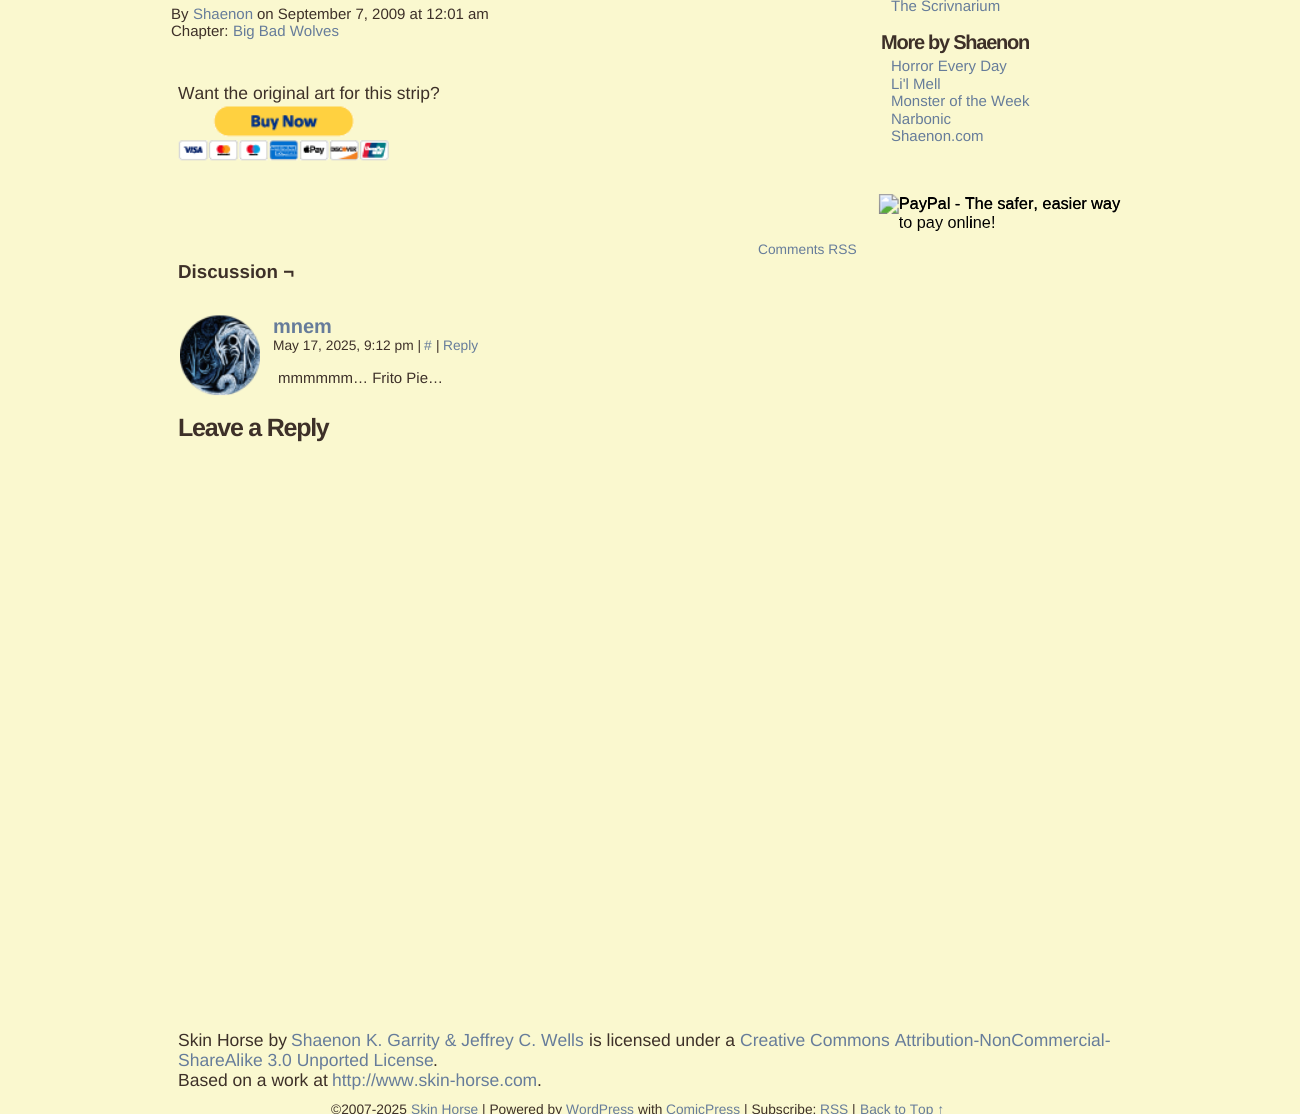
import math
import cairo

surface = cairo.ImageSurface(cairo.Format.RGB24, 1300, 1114)
ctx = cairo.Context(surface)
options = cairo.FontOptions()
options.set_hint_metrics(cairo.HintMetrics.OFF)
options.set_hint_style(cairo.HintStyle.NONE)
ctx.set_font_options(options)
ctx.set_miter_limit(4)


def ink(r, g, b):
    ctx.set_source_rgb(r / 255, g / 255, b / 255)


def write(x, y, s, family, size, color, bold=False, italic=False):
    ctx.select_font_face(family, cairo.FontSlant.ITALIC if italic else cairo.FontSlant.NORMAL, cairo.FontWeight.BOLD if bold else cairo.FontWeight.NORMAL)
    ctx.set_font_size(size)
    ink(*color)
    ctx.move_to(x, y)
    ctx.show_text(s)


def write_spaced(x, y, s, letter, word):
    ctx.move_to(x, y)
    for ch in s:
        ctx.show_text(ch)
        ctx.rel_move_to(letter + word * (ch == ' '), 0)


def paste(path, x, y, w, h):
    ctx.save()
    ctx.set_source_surface(cairo.ImageSurface.create_from_png(path), x, y)
    ctx.rectangle(x, y, w, h)
    ctx.fill()
    ctx.restore()


s1 = dict(family="Liberation Sans", size=15, color=(61, 48, 40))
s2 = dict(family="Liberation Sans", size=15, color=(102, 124, 154))
s3 = dict(family="Liberation Sans", size=17.5, color=(61, 48, 40))
s4 = dict(family="Liberation Sans", size=13.75, color=(102, 124, 154))
s5 = dict(family="Liberation Sans", size=18.75, color=(61, 48, 40), bold=True)
s6 = dict(family="Liberation Sans", size=20, color=(102, 124, 154), bold=True)
s7 = dict(family="Liberation Sans", size=13.75, color=(61, 48, 40))
s8 = dict(family="Liberation Sans", size=16.25, color=(0, 0, 0))
s9 = dict(family="Liberation Sans", size=17.5, color=(102, 124, 154))

ink(250, 248, 207)
ctx.paint()
write(171, 19, "By", **s1)
write(193, 19, "Shaenon", **s2)
write(257, 19, "on September 7, 2009 at 12:01 am", **s1)
write(171, 36, "Chapter:", **s1)
write(233, 36, "Big Bad Wolves", **s2)
write(178, 99, "Want the original art for this strip?", **s3)
paste("pic1.png", 178, 106, 211, 55)
write(758, 254, "Comments RSS", **s4)
write(178, 278, "Discussion ¬", **s5)
paste("pic2.png", 180, 315, 80, 81)
write(273, 333, "mnem", **s6)
write(273, 350, "May 17, 2025, 9:12 pm |", **s7)
write(424, 350, "#", **s4)
write(436, 350, "|", **s7)
write(443, 350, "Reply", **s4)
write(278, 383, "mmmmmm… Frito Pie…", **s1)
ctx.select_font_face("Liberation Sans", cairo.FontSlant.NORMAL, cairo.FontWeight.BOLD)
ctx.set_font_size(25)
write_spaced(178, 436, "Leave a Reply", -1.25, 0)
write(891, 11, "The Scrivnarium", **s2)
ctx.select_font_face("Liberation Sans", cairo.FontSlant.NORMAL, cairo.FontWeight.BOLD)
ctx.set_font_size(20)
ink(61, 48, 40)
write_spaced(881, 49, "More by Shaenon", -1.25, 0)
write(891, 71, "Horror Every Day", **s2)
write(891, 89, "Li'l Mell", **s2)
write(891, 106, "Monster of the Week", **s2)
write(891, 124, "Narbonic", **s2)
write(891, 141, "Shaenon.com", **s2)
paste("pic3.png", 878, 194, 242, 37)
write(899, 209, "PayPal - The safer, easier way", **s8)
write(969, 228, "i", **s8)
write(178, 1046, "Skin Horse by", **s3)
write(291, 1046, "Shaenon K. Garrity & Jeffrey C. Wells", **s9)
write(589, 1046, "is licensed under a", **s3)
write(740, 1046, "Creative Commons Attribution-NonCommercial-", **s9)
write(178, 1066, "ShareAlike 3.0 Unported License", **s9)
write(433, 1066, ".", **s3)
write(178, 1086, "Based on a work at", **s3)
write(332, 1086, "http://www.skin-horse.com", **s9)
write(537, 1086, ".", **s3)
write(331, 1114, "©2007-2025", **s7)
write(411, 1114, "Skin Horse", **s4)
write(482, 1114, "| Powered by", **s7)
write(566, 1114, "WordPress", **s4)
write(638, 1114, "with", **s7)
write(666, 1114, "ComicPress", **s4)
write(744, 1114, "| Subscribe:", **s7)
write(820, 1114, "RSS", **s4)
write(852, 1114, "|", **s7)
write(860, 1114, "Back to Top ↑", **s4)
surface.write_to_png("screenshot.png")
